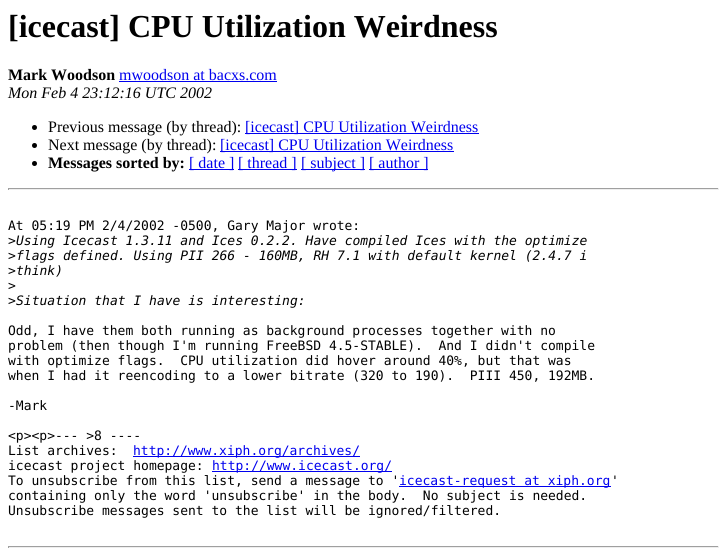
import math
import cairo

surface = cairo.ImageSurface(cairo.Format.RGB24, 727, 551)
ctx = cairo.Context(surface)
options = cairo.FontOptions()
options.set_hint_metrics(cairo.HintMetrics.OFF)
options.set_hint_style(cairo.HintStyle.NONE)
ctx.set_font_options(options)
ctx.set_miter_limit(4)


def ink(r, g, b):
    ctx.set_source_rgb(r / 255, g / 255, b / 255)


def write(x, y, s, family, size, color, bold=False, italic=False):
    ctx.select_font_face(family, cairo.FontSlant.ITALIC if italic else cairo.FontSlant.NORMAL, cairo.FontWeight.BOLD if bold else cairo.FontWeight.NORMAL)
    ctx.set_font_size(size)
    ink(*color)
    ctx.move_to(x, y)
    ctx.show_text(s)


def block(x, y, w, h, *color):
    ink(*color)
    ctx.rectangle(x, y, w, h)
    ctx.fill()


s1 = dict(family="Liberation Serif", size=32, color=(0, 0, 0), bold=True)
s2 = dict(family="Liberation Serif", size=16, color=(0, 0, 0), bold=True)
s3 = dict(family="Liberation Serif", size=16, color=(0, 0, 238))
s4 = dict(family="Liberation Serif", size=16, color=(0, 0, 0), italic=True)
s5 = dict(family="Liberation Serif", size=16, color=(0, 0, 0))
s6 = dict(family="DejaVu Sans Mono", size=13, color=(0, 0, 0))
s7 = dict(family="DejaVu Sans Mono", size=13, color=(0, 0, 0), italic=True)
s8 = dict(family="DejaVu Sans Mono", size=13, color=(0, 0, 238))

ink(255, 255, 255)
ctx.paint()
write(8, 37, "[icecast] CPU Utilization Weirdness", **s1)
write(8, 80, "Mark Woodson", **s2)
write(119, 80, "mwoodson at bacxs.com", **s3)
block(119, 81, 158, 1, 0, 0, 238)
write(8, 98, "Mon Feb 4 23:12:16 UTC 2002", **s4)
ctx.new_path()
ctx.arc(34.5, 127.5, 2.5, 0, 2 * math.pi)
ctx.fill()
write(48, 132, "Previous message (by thread):", **s5)
block(245, 133, 234, 1, 0, 0, 238)
write(245, 132, "[icecast] CPU Utilization Weirdness", **s3)
ink(0, 0, 0)
ctx.new_path()
ctx.arc(34.5, 145.5, 2.5, 0, 2 * math.pi)
ctx.fill()
write(48, 150, "Next message (by thread):", **s5)
block(220, 151, 234, 1, 0, 0, 238)
write(220, 150, "[icecast] CPU Utilization Weirdness", **s3)
ink(0, 0, 0)
ctx.new_path()
ctx.arc(34.5, 163.5, 2.5, 0, 2 * math.pi)
ctx.fill()
write(48, 168, "Messages sorted by:", **s2)
block(189, 169, 45, 1, 0, 0, 238)
write(189, 168, "[ date ]", **s3)
block(238, 169, 59, 1, 0, 0, 238)
write(238, 168, "[ thread ]", **s3)
block(301, 169, 64, 1, 0, 0, 238)
write(301, 168, "[ subject ]", **s3)
block(369, 169, 59, 1, 0, 0, 238)
write(369, 168, "[ author ]", **s3)
block(8, 188, 711, 1, 159, 159, 159)
block(718, 188, 1, 2, 238, 238, 238)
block(8, 189, 711, 1, 238, 238, 238)
block(8, 188, 1, 2, 159, 159, 159)
write(8, 230, "At 05:19 PM 2/4/2002 -0500, Gary Major wrote:", **s6)
write(8, 245, ">", **s6)
write(16, 245, "Using Icecast 1.3.11 and Ices 0.2.2. Have compiled Ices with the optimize", **s7)
write(8, 260, ">", **s6)
write(16, 260, "flags defined. Using PII 266 - 160MB, RH 7.1 with default kernel (2.4.7 i", **s7)
write(8, 275, ">", **s6)
write(16, 275, "think)", **s7)
write(8, 290, ">", **s6)
write(8, 305, ">", **s6)
write(16, 305, "Situation that I have is interesting:", **s7)
write(8, 335, "Odd, I have them both running as background processes together with no", **s6)
write(8, 350, "problem (then though I'm running FreeBSD 4.5-STABLE).  And I didn't compile", **s6)
write(8, 365, "with optimize flags.  CPU utilization did hover around 40%, but that was", **s6)
write(8, 380, "when I had it reencoding to a lower bitrate (320 to 190).  PIII 450, 192MB.", **s6)
write(8, 410, "-Mark", **s6)
write(8, 440, "<p><p>--- >8 ----", **s6)
write(8, 455, "List archives:", **s6)
block(133, 456, 227, 1, 0, 0, 238)
write(133, 455, "http://www.xiph.org/archives/", **s8)
write(8, 470, "icecast project homepage:", **s6)
block(212, 471, 180, 1, 0, 0, 238)
write(212, 470, "http://www.icecast.org/", **s8)
write(8, 485, "To unsubscribe from this list, send a message to '", **s6)
block(399, 486, 212, 1, 0, 0, 238)
write(399, 485, "icecast-request at xiph.org", **s8)
write(611, 485, "'", **s6)
write(8, 500, "containing only the word 'unsubscribe' in the body.  No subject is needed.", **s6)
write(8, 515, "Unsubscribe messages sent to the list will be ignored/filtered.", **s6)
block(8, 546, 711, 1, 159, 159, 159)
block(718, 546, 1, 2, 238, 238, 238)
block(8, 547, 711, 1, 238, 238, 238)
block(8, 546, 1, 2, 159, 159, 159)
surface.write_to_png("screenshot.png")
